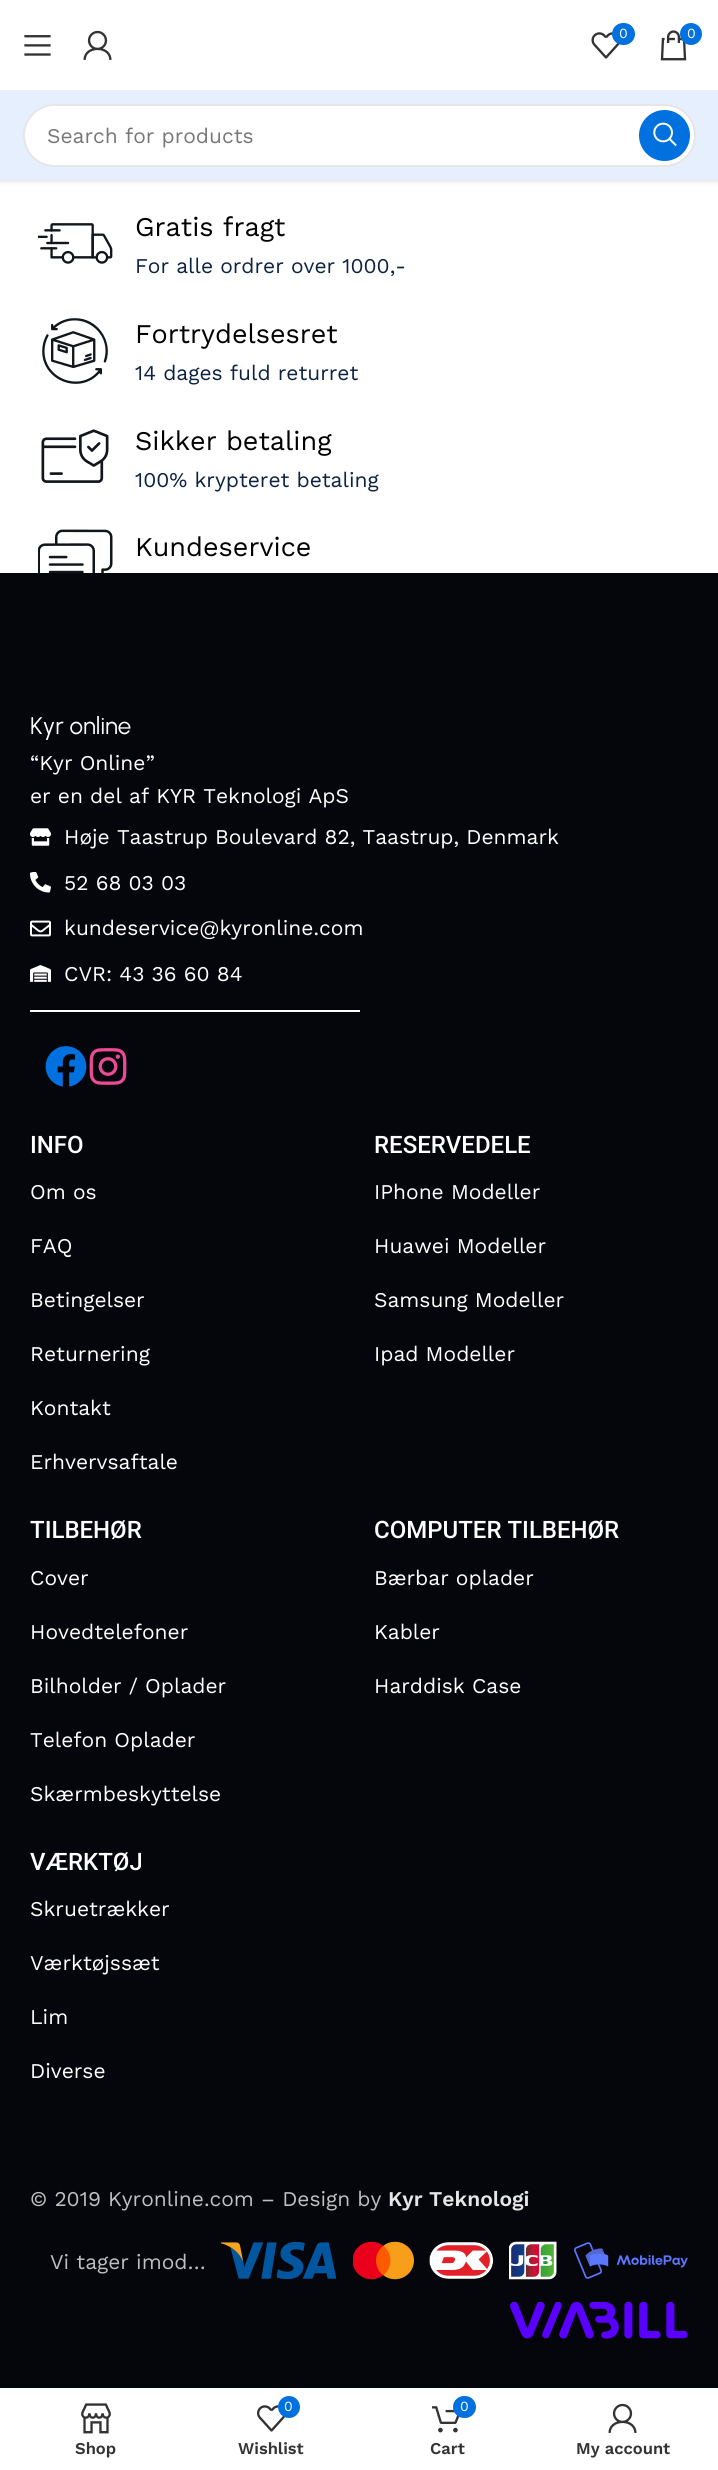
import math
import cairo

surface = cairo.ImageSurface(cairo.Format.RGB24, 718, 2470)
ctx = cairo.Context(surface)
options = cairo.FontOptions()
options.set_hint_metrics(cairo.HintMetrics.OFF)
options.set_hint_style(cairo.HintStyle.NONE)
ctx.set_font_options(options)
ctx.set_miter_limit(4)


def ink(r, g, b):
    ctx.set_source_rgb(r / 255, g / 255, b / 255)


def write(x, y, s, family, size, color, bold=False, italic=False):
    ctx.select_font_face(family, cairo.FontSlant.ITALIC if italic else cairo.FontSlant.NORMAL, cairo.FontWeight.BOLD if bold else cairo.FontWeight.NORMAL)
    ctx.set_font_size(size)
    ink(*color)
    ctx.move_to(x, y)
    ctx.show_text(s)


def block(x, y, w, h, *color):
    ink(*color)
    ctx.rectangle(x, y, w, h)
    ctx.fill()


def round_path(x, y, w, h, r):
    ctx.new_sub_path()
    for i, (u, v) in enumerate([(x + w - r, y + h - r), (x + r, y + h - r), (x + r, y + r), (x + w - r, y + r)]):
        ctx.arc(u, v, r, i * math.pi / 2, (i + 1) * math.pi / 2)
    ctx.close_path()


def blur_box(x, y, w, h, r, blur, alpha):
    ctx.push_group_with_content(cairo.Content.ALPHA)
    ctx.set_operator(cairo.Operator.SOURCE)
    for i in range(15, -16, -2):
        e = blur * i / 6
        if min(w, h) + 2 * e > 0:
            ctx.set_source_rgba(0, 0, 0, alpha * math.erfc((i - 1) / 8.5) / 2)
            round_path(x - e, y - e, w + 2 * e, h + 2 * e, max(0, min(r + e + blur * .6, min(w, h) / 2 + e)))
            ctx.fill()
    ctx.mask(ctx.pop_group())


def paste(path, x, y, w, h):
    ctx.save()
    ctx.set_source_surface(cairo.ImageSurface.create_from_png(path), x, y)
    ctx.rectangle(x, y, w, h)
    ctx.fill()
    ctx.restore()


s1 = dict(family="Work Sans", size=14, color=(255, 255, 255))
s2 = dict(family="Work Sans", size=21, color=(119, 119, 119))
s3 = dict(family="Work Sans", size=27, color=(0, 0, 0))
s4 = dict(family="Work Sans", size=21, color=(12, 34, 66))
s5 = dict(family="Urbanist", size=24, color=(255, 255, 255))
s6 = dict(family="Work Sans", size=21, color=(255, 255, 255))
s7 = dict(family="Roboto Medium", size=24, color=(255, 255, 255))
s8 = dict(family="Work Sans", size=21, color=(191, 191, 191))
s9 = dict(family="Work Sans SemiBold", size=21, color=(230, 230, 231))
s10 = dict(family="Work Sans SemiBold", size=16.5, color=(51, 51, 51))

ink(255, 255, 255)
ctx.paint()
ink(0, 0, 0)
blur_box(0, 2, 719, 180, 0, 2, 0.1)
block(0, 0, 718, 90, 255, 255, 255)
paste("pic1.png", 24, 35, 27, 21)
paste("pic2.png", 83, 30, 29, 30)
paste("pic3.png", 591, 32, 29, 27)
ink(0, 113, 223)
round_path(612, 23, 23, 22, 11)
ctx.fill()
write(619, 38, "0", **s1)
paste("pic4.png", 660, 30, 27, 31)
ink(0, 113, 223)
ctx.arc(691, 34, 11, 0, 2 * math.pi)
ctx.fill()
write(687, 38, "0", **s1)
block(0, 90, 718, 90, 230, 239, 253)
ink(255, 255, 255)
round_path(23, 104, 673, 63, 31.5)
ctx.fill()
round_path(24, 105, 671, 61, 30.5)
ctx.set_source_rgba(0, 0, 0, 0.1)
ctx.stroke()
write(47, 143, "Search for products", **s2)
ink(0, 113, 223)
ctx.new_path()
ctx.arc(664.5, 135.5, 25.5, 0, 2 * math.pi)
ctx.fill()
paste("pic5.png", 653, 122, 24, 25)
paste("pic6.png", 38, 223, 75, 41)
write(135, 236, "Gratis fragt", **s3)
write(135, 273, "For alle ordrer over 1000,-", **s4)
paste("pic7.png", 42, 318, 66, 66)
write(135, 343, "Fortrydelsesret", **s3)
write(135, 380, "14 dages fuld returret", **s4)
paste("pic8.png", 41, 429, 68, 54)
write(135, 450, "Sikker betaling", **s3)
write(135, 487, "100% krypteret betaling", **s4)
paste("pic9.png", 38, 529, 75, 44)
write(135, 556, "Kundeservice", **s3)
block(0, 573, 718, 1815, 5, 5, 12)
write(30, 734, "Kyr online", **s5)
write(30, 770, "“Kyr Online”", **s6)
write(30, 803, "er en del af KYR Teknologi ApS", **s6)
paste("pic10.png", 30, 828, 21, 18)
write(64, 844, "Høje Taastrup Boulevard 82, Taastrup, Denmark", **s6)
paste("pic11.png", 30, 872, 21, 21)
write(64, 890, "52 68 03 03", **s6)
paste("pic12.png", 30, 920, 21, 17)
write(64, 935, "kundeservice@kyronline.com", **s6)
paste("pic13.png", 30, 965, 21, 17)
write(64, 981, "CVR: 43 36 60 84", **s6)
block(30, 1010, 330, 2, 255, 255, 255)
paste("pic14.png", 45, 1046, 42, 41)
paste("pic15.png", 89, 1048, 38, 37)
write(30, 1153, "INFO", **s7)
write(30, 1199, "Om os", **s6)
write(30, 1253, "FAQ", **s6)
write(30, 1307, "Betingelser", **s6)
write(30, 1361, "Returnering", **s6)
write(30, 1415, "Kontakt", **s6)
write(30, 1469, "Erhvervsaftale", **s6)
write(374, 1153, "RESERVEDELE", **s7)
write(374, 1199, "IPhone Modeller", **s6)
write(374, 1253, "Huawei Modeller", **s6)
write(374, 1307, "Samsung Modeller", **s6)
write(374, 1361, "Ipad Modeller", **s6)
write(30, 1538, "TILBEHØR", **s7)
write(30, 1585, "Cover", **s6)
write(30, 1639, "Hovedtelefoner", **s6)
write(30, 1693, "Bilholder / Oplader", **s6)
write(30, 1747, "Telefon Oplader", **s6)
write(30, 1801, "Skærmbeskyttelse", **s6)
write(374, 1538, "COMPUTER TILBEHØR", **s7)
write(374, 1585, "Bærbar oplader", **s6)
write(374, 1639, "Kabler", **s6)
write(374, 1693, "Harddisk Case", **s6)
write(30, 1870, "VÆRKTØJ", **s7)
write(30, 1916, "Skruetrækker", **s6)
write(30, 1970, "Værktøjssæt", **s6)
write(30, 2024, "Lim", **s6)
write(30, 2078, "Diverse", **s6)
write(30, 2206, "© 2019 Kyronline.com – Design by", **s8)
write(388, 2206, "Kyr Teknologi", **s9)
write(50, 2269, "Vi tager imod…", **s8)
paste("pic16.png", 221, 2242, 115, 37)
paste("pic17.png", 353, 2241, 61, 39)
paste("pic18.png", 429, 2242, 65, 37)
paste("pic19.png", 509, 2241, 48, 39)
paste("pic20.png", 574, 2242, 114, 37)
paste("pic21.png", 510, 2302, 178, 37)
paste("pic22.png", 81, 2403, 30, 31)
write(75, 2454, "Shop", **s10)
paste("pic23.png", 257, 2405, 28, 27)
ink(0, 113, 223)
ctx.arc(289, 2407, 11, 0, 2 * math.pi)
ctx.fill()
write(284, 2411, "0", **s1)
write(238, 2454, "Wishlist", **s10)
paste("pic24.png", 432, 2406, 28, 27)
ink(0, 113, 223)
round_path(453, 2396, 23, 22, 11)
ctx.fill()
write(460, 2411, "0", **s1)
write(430, 2454, "Cart", **s10)
paste("pic2.png", 608, 2403, 29, 30)
write(576, 2454, "My account", **s10)
surface.write_to_png("screenshot.png")
